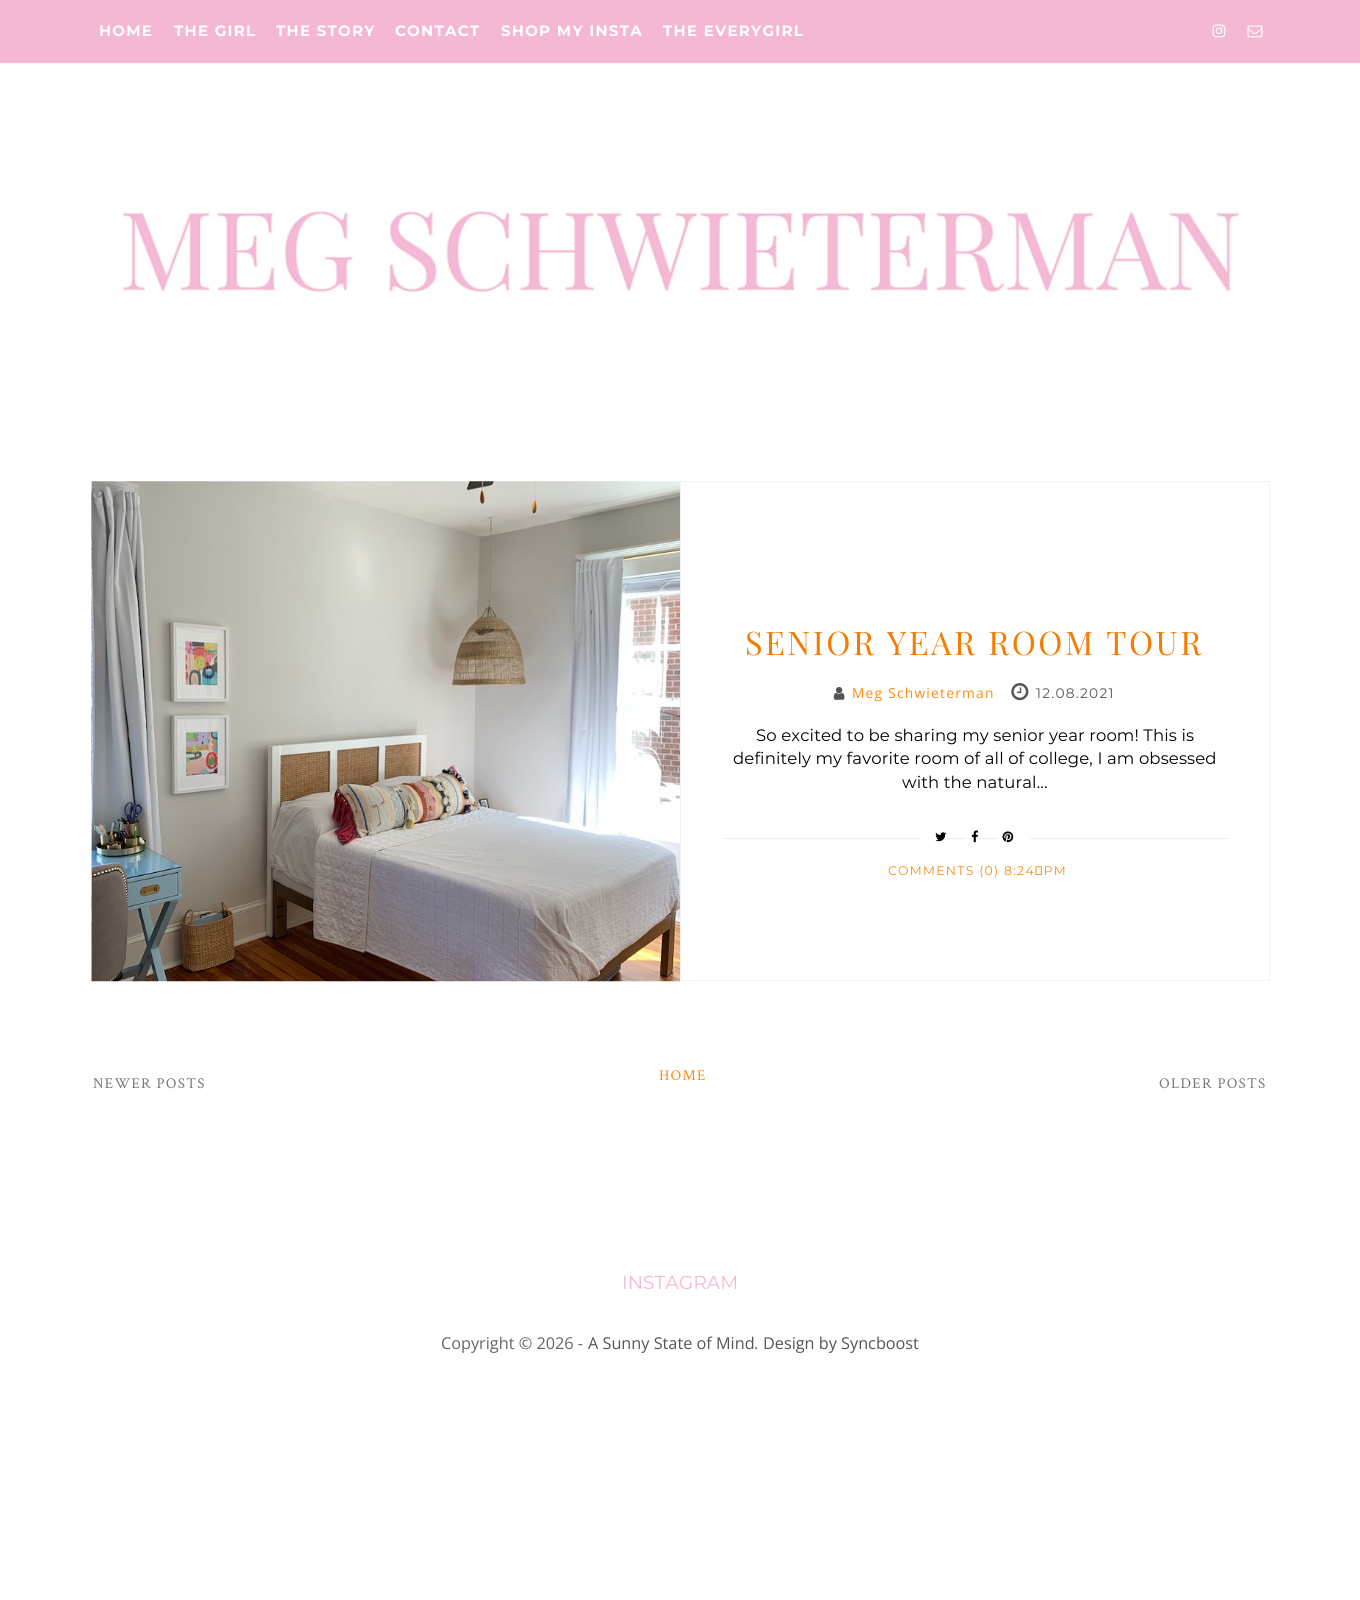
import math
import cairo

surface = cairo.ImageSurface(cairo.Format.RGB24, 1360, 1600)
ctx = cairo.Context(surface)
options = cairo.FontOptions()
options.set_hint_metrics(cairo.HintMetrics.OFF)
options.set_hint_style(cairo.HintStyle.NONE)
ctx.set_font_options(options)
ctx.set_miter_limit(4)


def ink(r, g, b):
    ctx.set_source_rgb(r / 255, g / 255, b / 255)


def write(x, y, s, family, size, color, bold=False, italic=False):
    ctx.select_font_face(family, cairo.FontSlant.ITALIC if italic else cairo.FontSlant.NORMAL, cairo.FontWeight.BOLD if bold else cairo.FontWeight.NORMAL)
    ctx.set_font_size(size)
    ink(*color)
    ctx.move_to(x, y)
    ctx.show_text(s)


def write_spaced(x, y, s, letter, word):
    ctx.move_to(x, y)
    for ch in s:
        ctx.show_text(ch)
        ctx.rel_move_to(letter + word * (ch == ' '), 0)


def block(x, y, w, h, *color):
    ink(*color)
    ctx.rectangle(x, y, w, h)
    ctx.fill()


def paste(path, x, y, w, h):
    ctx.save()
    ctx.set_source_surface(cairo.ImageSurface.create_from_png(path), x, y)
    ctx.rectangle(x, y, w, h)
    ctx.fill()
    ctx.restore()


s1 = dict(family="Montserrat", size=18.75, color=(244, 184, 212))
s2 = dict(family="Open Sans", size=16.25, color=(102, 102, 102))
s3 = dict(family="Open Sans", size=16.25, color=(85, 85, 85))

ink(255, 255, 255)
ctx.paint()
block(0, 0, 1360, 63, 244, 184, 212)
block(0, 63, 1360, 1, 245, 245, 245)
ctx.select_font_face("Montserrat", cairo.FontSlant.NORMAL, cairo.FontWeight.BOLD)
ctx.set_font_size(15)
ink(255, 255, 255)
write_spaced(99, 36, "HOME", 1.25, 0)
write_spaced(174, 36, "THE GIRL", 1.25, 0)
write_spaced(276, 36, "THE STORY", 1.25, 0)
write_spaced(395, 36, "CONTACT", 1.25, 0)
write_spaced(501, 36, "SHOP MY INSTA", 1.25, 0)
write_spaced(663, 36, "THE EVERYGIRL", 1.25, 0)
paste("pic1.png", 1212, 24, 14, 14)
paste("pic2.png", 1247, 25, 16, 13)
paste("pic3.png", 122, 211, 1117, 82)
paste("pic4.png", 91, 481, 589, 501)
ctx.rectangle(680.5, 481.5, 589, 499)
ink(243, 243, 243)
ctx.set_line_width(1)
ctx.stroke()
ctx.select_font_face("Playfair Display")
ctx.set_font_size(32.5)
ink(245, 124, 0)
write_spaced(745, 655, "SENIOR YEAR ROOM TOUR", 2.5, 0)
paste("pic5.png", 833, 687, 12, 13)
ctx.select_font_face("Open Sans")
ctx.set_font_size(13.75)
ink(255, 138, 20)
write_spaced(852, 698, "Meg Schwieterman", 1.25, 0)
paste("pic6.png", 1011, 683, 18, 18)
ctx.select_font_face("Montserrat")
ink(85, 85, 85)
write_spaced(1036, 698, "12.08.2021", 1.25, 0)
ctx.set_font_size(16.5)
ink(0, 0, 0)
write_spaced(756, 741, "So excited to be sharing my senior year room! This is", 0.12, 0)
write_spaced(733, 764, "definitely my favorite room of all of college, I am obsessed", 0.12, 0)
write_spaced(902, 788, "with the natural...", 0.12, 0)
block(723, 838, 505, 1, 238, 238, 238)
block(920, 838, 28, 1, 255, 255, 255)
block(966, 838, 5, 7, 255, 255, 255)
block(971, 830, 8, 13, 255, 255, 255)
block(998, 838, 5, 7, 255, 255, 255)
block(1003, 838, 27, 1, 255, 255, 255)
paste("pic7.png", 935, 832, 12, 10)
paste("pic8.png", 971, 830, 7, 13)
paste("pic9.png", 1002, 831, 12, 12)
ctx.set_font_size(12.5)
ink(255, 138, 20)
write_spaced(888, 875, "COMMENTS (0) 8:24 PM", 1.25, 0)
ctx.select_font_face("Crimson Text")
ctx.set_font_size(15)
write_spaced(659, 1080, "HOME", 1.25, 0)
ink(119, 119, 119)
write_spaced(93, 1088, "NEWER POSTS", 1.25, 0)
write_spaced(1159, 1088, "OLDER POSTS", 1.25, 0)
write(622, 1289, "INSTAGRAM", **s1)
write(441, 1349, "Copyright © 2026 -", **s2)
write(588, 1349, "A Sunny State of Mind", **s3)
write(754, 1349, ".", **s2)
write(763, 1349, "Design by Syncboost", **s3)
surface.write_to_png("screenshot.png")
